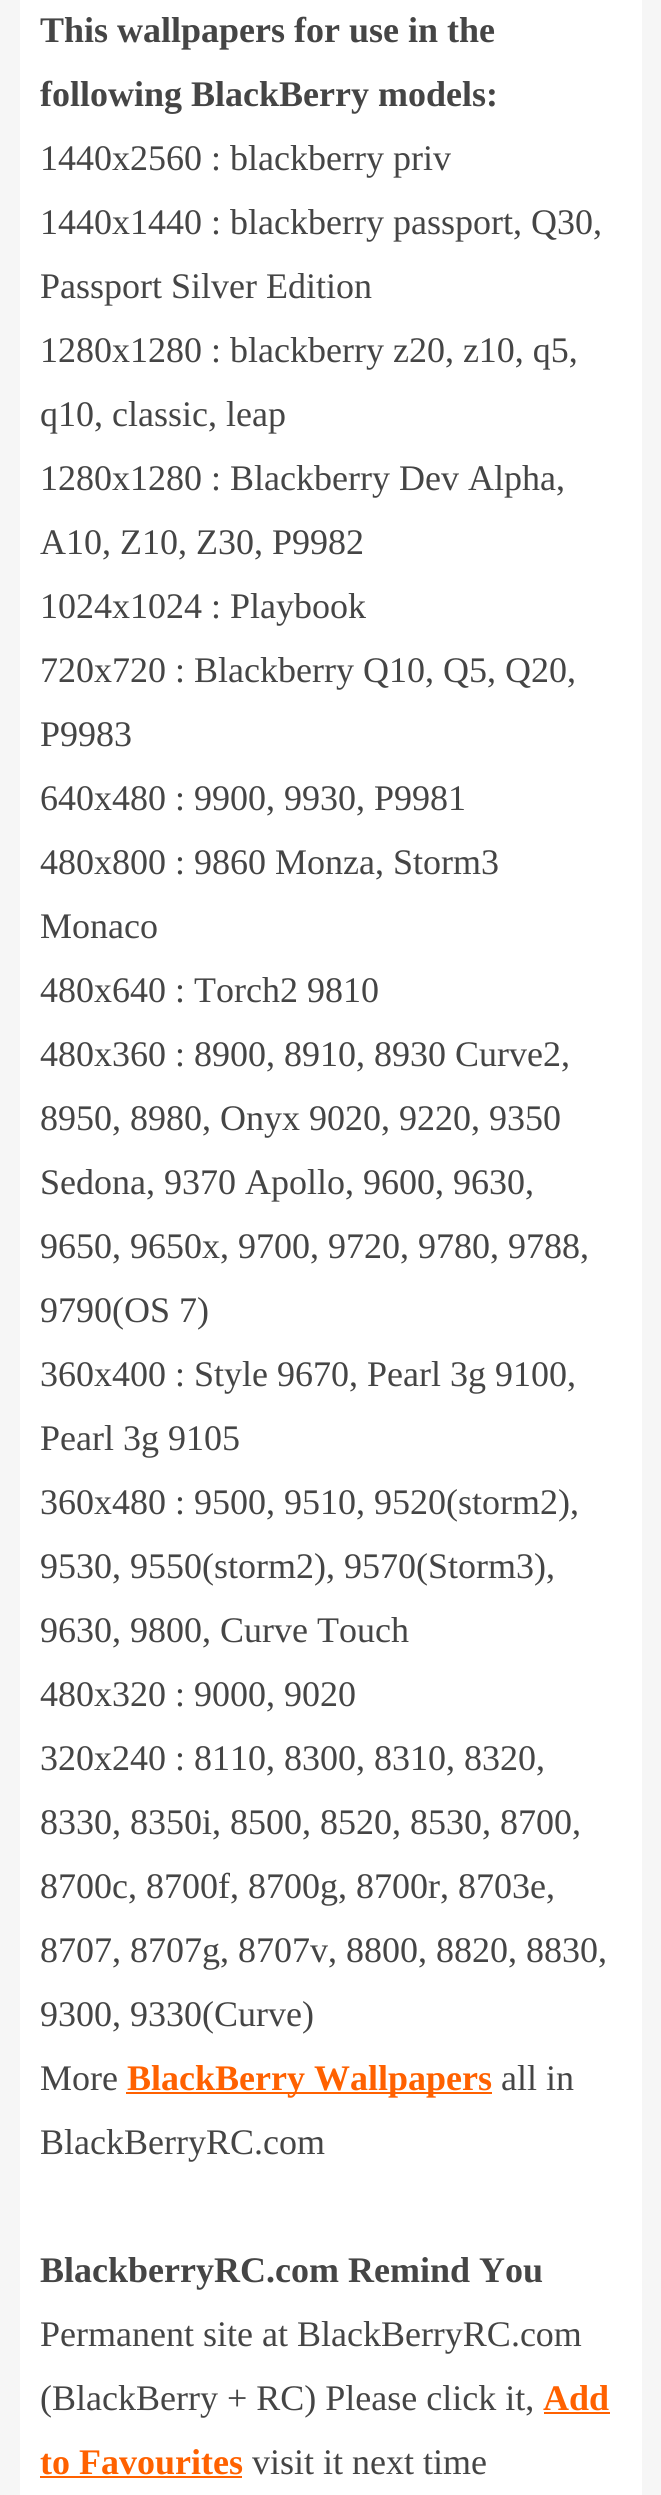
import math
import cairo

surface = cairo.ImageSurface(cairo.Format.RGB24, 661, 2495)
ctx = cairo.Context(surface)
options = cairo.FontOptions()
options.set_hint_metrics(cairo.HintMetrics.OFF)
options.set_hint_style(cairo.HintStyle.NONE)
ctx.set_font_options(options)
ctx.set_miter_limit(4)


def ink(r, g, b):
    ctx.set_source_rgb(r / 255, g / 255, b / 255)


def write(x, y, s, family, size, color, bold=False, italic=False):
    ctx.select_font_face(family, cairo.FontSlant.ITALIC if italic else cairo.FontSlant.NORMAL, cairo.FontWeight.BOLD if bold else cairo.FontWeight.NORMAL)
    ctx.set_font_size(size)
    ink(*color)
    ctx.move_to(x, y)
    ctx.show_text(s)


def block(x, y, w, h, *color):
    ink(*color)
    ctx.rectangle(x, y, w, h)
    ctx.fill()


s1 = dict(family="Liberation Serif", size=36, color=(69, 69, 69), bold=True)
s2 = dict(family="Liberation Serif", size=36, color=(69, 69, 69))
s3 = dict(family="Liberation Serif", size=36, color=(255, 97, 0), bold=True)

ink(246, 246, 246)
ctx.paint()
block(20, 0, 622, 2495, 255, 255, 255)
write(40, 42, "This wallpapers for use in the", **s1)
write(40, 106, "following BlackBerry models:", **s1)
write(40, 170, "1440x2560 : blackberry priv", **s2)
write(40, 234, "1440x1440 : blackberry passport, Q30,", **s2)
write(40, 298, "Passport Silver Edition", **s2)
write(40, 362, "1280x1280 : blackberry z20, z10, q5,", **s2)
write(40, 426, "q10, classic, leap", **s2)
write(40, 490, "1280x1280 : Blackberry Dev Alpha,", **s2)
write(40, 554, "A10, Z10, Z30, P9982", **s2)
write(40, 618, "1024x1024 : Playbook", **s2)
write(40, 682, "720x720 : Blackberry Q10, Q5, Q20,", **s2)
write(40, 746, "P9983", **s2)
write(40, 810, "640x480 : 9900, 9930, P9981", **s2)
write(40, 874, "480x800 : 9860 Monza, Storm3", **s2)
write(40, 938, "Monaco", **s2)
write(40, 1002, "480x640 : Torch2 9810", **s2)
write(40, 1066, "480x360 : 8900, 8910, 8930 Curve2,", **s2)
write(40, 1130, "8950, 8980, Onyx 9020, 9220, 9350", **s2)
write(40, 1194, "Sedona, 9370 Apollo, 9600, 9630,", **s2)
write(40, 1258, "9650, 9650x, 9700, 9720, 9780, 9788,", **s2)
write(40, 1322, "9790(OS 7)", **s2)
write(40, 1386, "360x400 : Style 9670, Pearl 3g 9100,", **s2)
write(40, 1450, "Pearl 3g 9105", **s2)
write(40, 1514, "360x480 : 9500, 9510, 9520(storm2),", **s2)
write(40, 1578, "9530, 9550(storm2), 9570(Storm3),", **s2)
write(40, 1642, "9630, 9800, Curve Touch", **s2)
write(40, 1706, "480x320 : 9000, 9020", **s2)
write(40, 1770, "320x240 : 8110, 8300, 8310, 8320,", **s2)
write(40, 1834, "8330, 8350i, 8500, 8520, 8530, 8700,", **s2)
write(40, 1898, "8700c, 8700f, 8700g, 8700r, 8703e,", **s2)
write(40, 1962, "8707, 8707g, 8707v, 8800, 8820, 8830,", **s2)
write(40, 2026, "9300, 9330(Curve)", **s2)
write(40, 2090, "More", **s2)
block(126, 2092, 366, 2, 255, 97, 0)
write(127, 2090, "BlackBerry Wallpapers", **s3)
write(501, 2090, "all in", **s2)
write(40, 2154, "BlackBerryRC.com", **s2)
write(40, 2282, "BlackberryRC.com Remind You", **s1)
write(40, 2346, "Permanent site at BlackBerryRC.com", **s2)
write(40, 2410, "(BlackBerry + RC) Please click it,", **s2)
write(543, 2410, "Add", **s3)
block(544, 2412, 66, 2, 255, 97, 0)
write(40, 2474, "to Favourites", **s3)
block(40, 2476, 202, 2, 255, 97, 0)
write(252, 2474, "visit it next time", **s2)
surface.write_to_png("screenshot.png")
